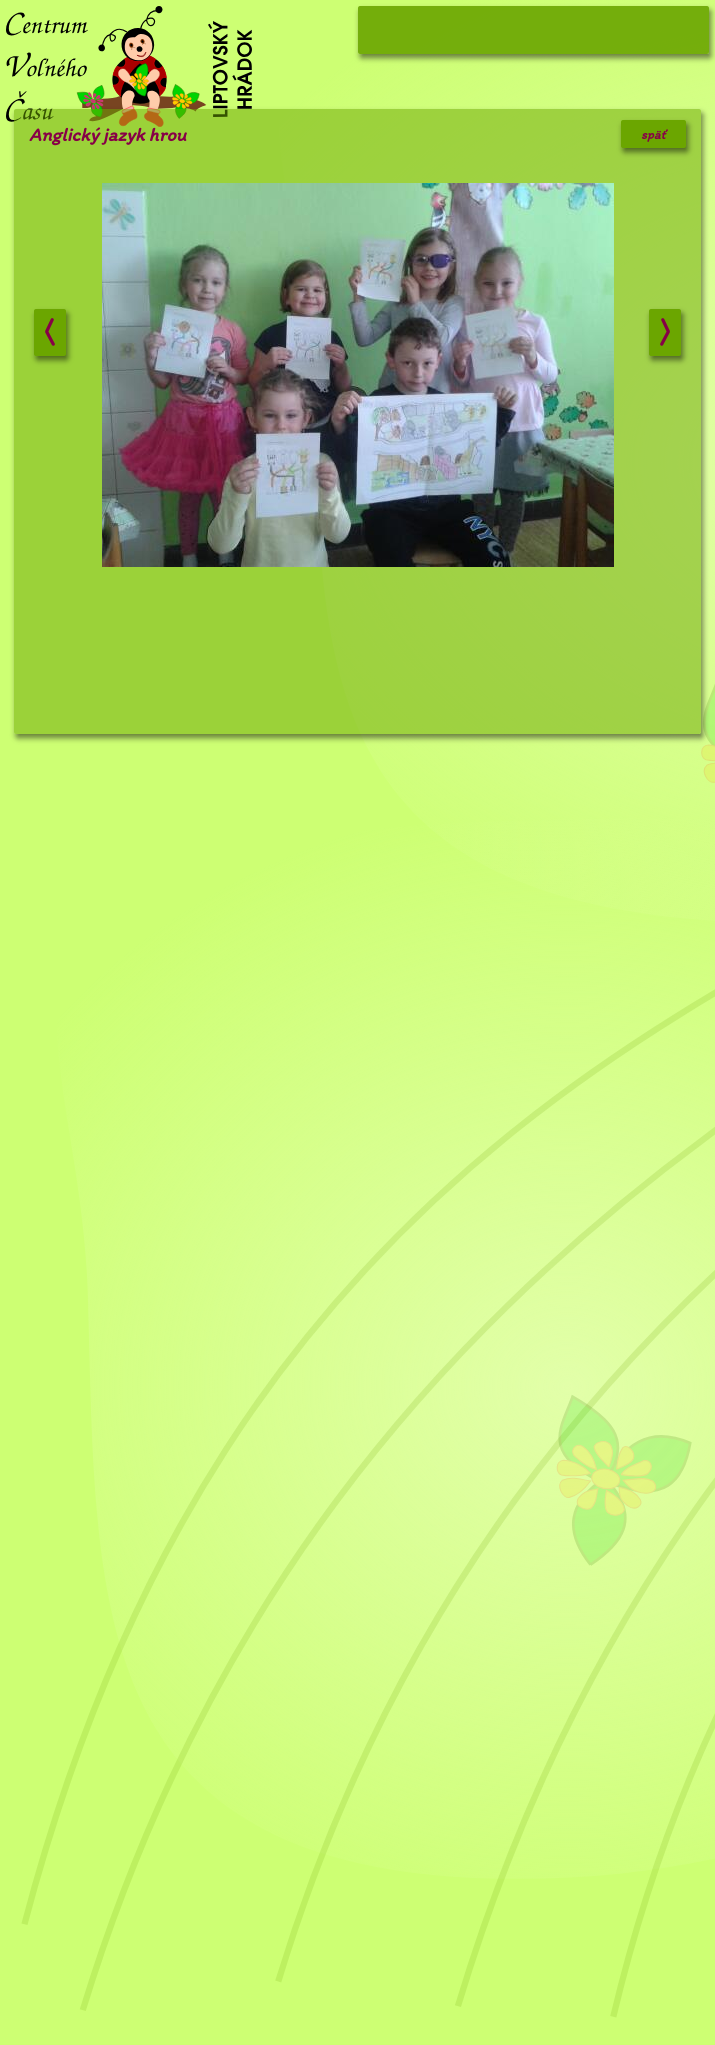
import math
import cairo

surface = cairo.ImageSurface(cairo.Format.RGB24, 715, 2045)
ctx = cairo.Context(surface)
options = cairo.FontOptions()
options.set_hint_metrics(cairo.HintMetrics.OFF)
options.set_hint_style(cairo.HintStyle.NONE)
ctx.set_font_options(options)
ctx.set_miter_limit(4)


def ink(r, g, b):
    ctx.set_source_rgb(r / 255, g / 255, b / 255)


def write(x, y, s, family, size, color, bold=False, italic=False):
    ctx.select_font_face(family, cairo.FontSlant.ITALIC if italic else cairo.FontSlant.NORMAL, cairo.FontWeight.BOLD if bold else cairo.FontWeight.NORMAL)
    ctx.set_font_size(size)
    ink(*color)
    ctx.move_to(x, y)
    ctx.show_text(s)


def round_path(x, y, w, h, r):
    ctx.new_sub_path()
    for i, (u, v) in enumerate([(x + w - r, y + h - r), (x + r, y + h - r), (x + r, y + r), (x + w - r, y + r)]):
        ctx.arc(u, v, r, i * math.pi / 2, (i + 1) * math.pi / 2)
    ctx.close_path()


def blur_box(x, y, w, h, r, blur, alpha):
    ctx.push_group_with_content(cairo.Content.ALPHA)
    ctx.set_operator(cairo.Operator.SOURCE)
    for i in range(15, -16, -2):
        e = blur * i / 6
        if min(w, h) + 2 * e > 0:
            ctx.set_source_rgba(0, 0, 0, alpha * math.erfc((i - 1) / 8.5) / 2)
            round_path(x - e, y - e, w + 2 * e, h + 2 * e, max(0, min(r + e + blur * .6, min(w, h) / 2 + e)))
            ctx.fill()
    ctx.mask(ctx.pop_group())


def paste(path, x, y, w, h):
    ctx.save()
    ctx.set_source_surface(cairo.ImageSurface.create_from_png(path), x, y)
    ctx.rectangle(x, y, w, h)
    ctx.fill()
    ctx.restore()


s1 = dict(family="Itim", size=18.75, color=(135, 0, 71), bold=True, italic=True)
s2 = dict(family="Itim", size=13, color=(135, 0, 71), bold=True, italic=True)

ink(205, 255, 115)
ctx.paint()
paste("pic1.png", 21, 0, 694, 2018)
paste("pic2.png", 6, 6, 246, 121)
ctx.save()
ctx.set_fill_rule(cairo.FillRule.EVEN_ODD)
ctx.new_path()
ctx.move_to(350, 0)
ctx.line_to(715, 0)
ctx.line_to(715, 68)
ctx.line_to(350, 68)
ctx.close_path()
ctx.move_to(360, 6)
ctx.line_to(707, 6)
ctx.curve_to(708, 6, 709, 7, 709, 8)
ctx.line_to(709, 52)
ctx.curve_to(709, 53, 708, 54, 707, 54)
ctx.line_to(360, 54)
ctx.curve_to(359, 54, 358, 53, 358, 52)
ctx.line_to(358, 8)
ctx.curve_to(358, 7, 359, 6, 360, 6)
ctx.close_path()
ctx.clip()
ink(0, 0, 0)
blur_box(360, 10, 351, 48, 2, 3, 0.5)
ctx.restore()
ctx.set_source_rgba(0.42, 0.651, 0, 0.9)
round_path(358, 6, 351, 48, 2)
ctx.fill()
ctx.save()
ctx.set_fill_rule(cairo.FillRule.EVEN_ODD)
ctx.new_path()
ctx.move_to(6, 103)
ctx.line_to(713, 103)
ctx.line_to(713, 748)
ctx.line_to(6, 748)
ctx.close_path()
ctx.move_to(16, 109)
ctx.line_to(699, 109)
ctx.curve_to(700, 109, 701, 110, 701, 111)
ctx.line_to(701, 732)
ctx.curve_to(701, 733, 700, 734, 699, 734)
ctx.line_to(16, 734)
ctx.curve_to(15, 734, 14, 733, 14, 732)
ctx.line_to(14, 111)
ctx.curve_to(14, 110, 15, 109, 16, 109)
ctx.close_path()
ctx.clip()
ink(0, 0, 0)
blur_box(16, 113, 687, 625, 2, 3, 0.5)
ctx.restore()
ctx.set_source_rgba(0.42, 0.651, 0, 0.5)
round_path(14, 109, 687, 625, 2)
ctx.fill()
write(29, 141, "Anglický jazyk hrou", **s1)
ink(0, 0, 0)
blur_box(623, 124, 65, 28, 2, 3, 0.5)
ink(107, 166, 0)
round_path(621, 120, 65, 28, 2)
ctx.fill()
write(641, 139, "späť", **s2)
ink(0, 0, 0)
blur_box(36, 313, 32, 47, 2, 3, 0.5)
ink(107, 166, 0)
round_path(34, 309, 32, 47, 2)
ctx.fill()
paste("pic3.png", 45, 318, 10, 28)
paste("pic4.png", 102, 183, 512, 384)
ink(0, 0, 0)
blur_box(651, 313, 32, 47, 2, 3, 0.5)
ink(107, 166, 0)
round_path(649, 309, 32, 47, 2)
ctx.fill()
paste("pic5.png", 660, 318, 10, 28)
surface.write_to_png("screenshot.png")
